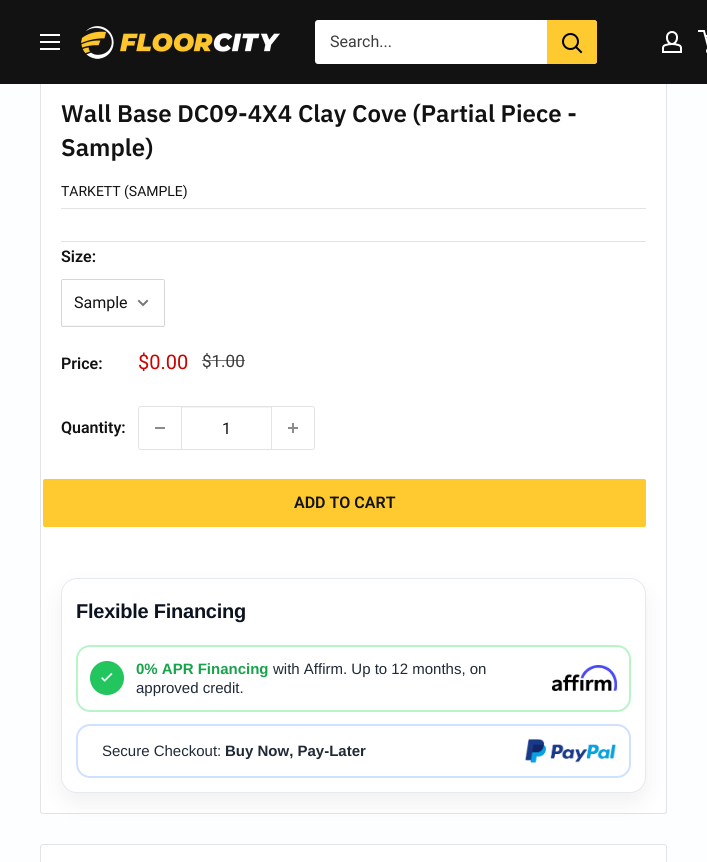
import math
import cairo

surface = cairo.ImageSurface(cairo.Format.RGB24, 707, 862)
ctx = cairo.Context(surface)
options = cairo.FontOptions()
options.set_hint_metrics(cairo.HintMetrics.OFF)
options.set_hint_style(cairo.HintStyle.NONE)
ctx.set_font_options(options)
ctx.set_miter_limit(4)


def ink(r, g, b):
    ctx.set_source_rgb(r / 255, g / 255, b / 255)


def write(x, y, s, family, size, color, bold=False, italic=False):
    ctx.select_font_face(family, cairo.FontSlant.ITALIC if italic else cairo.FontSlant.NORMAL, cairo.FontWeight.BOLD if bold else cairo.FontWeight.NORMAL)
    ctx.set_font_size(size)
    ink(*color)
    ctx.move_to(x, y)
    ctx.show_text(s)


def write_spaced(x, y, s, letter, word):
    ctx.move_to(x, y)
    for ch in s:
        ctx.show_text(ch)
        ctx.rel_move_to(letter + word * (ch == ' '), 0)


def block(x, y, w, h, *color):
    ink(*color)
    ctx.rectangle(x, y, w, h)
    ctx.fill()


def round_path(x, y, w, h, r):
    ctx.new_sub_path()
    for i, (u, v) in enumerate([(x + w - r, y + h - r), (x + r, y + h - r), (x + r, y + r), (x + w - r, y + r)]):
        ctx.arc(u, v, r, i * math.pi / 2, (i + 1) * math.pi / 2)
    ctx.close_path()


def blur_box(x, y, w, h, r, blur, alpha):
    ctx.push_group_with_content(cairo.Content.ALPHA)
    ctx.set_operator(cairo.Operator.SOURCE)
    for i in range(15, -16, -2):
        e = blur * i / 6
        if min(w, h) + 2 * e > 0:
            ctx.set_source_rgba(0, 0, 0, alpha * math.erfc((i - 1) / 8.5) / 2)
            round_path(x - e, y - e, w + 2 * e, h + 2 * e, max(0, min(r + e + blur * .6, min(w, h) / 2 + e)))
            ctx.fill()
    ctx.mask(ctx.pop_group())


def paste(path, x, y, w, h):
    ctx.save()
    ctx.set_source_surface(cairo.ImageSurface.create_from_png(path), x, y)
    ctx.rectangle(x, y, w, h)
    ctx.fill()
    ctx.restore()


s1 = dict(family="Roboto", size=16, color=(61, 61, 61))
s2 = dict(family="IBM Plex Sans SemiBold", size=24, color=(18, 18, 18))
s3 = dict(family="Roboto", size=14, color=(18, 18, 18))
s4 = dict(family="Roboto SemiBold", size=16, color=(18, 18, 18))
s5 = dict(family="Roboto", size=16, color=(18, 18, 18))
s6 = dict(family="Roboto", size=20, color=(204, 0, 0))
s7 = dict(family="Roboto", size=17, color=(61, 61, 61))
s8 = dict(family="Liberation Sans", size=15, color=(22, 163, 74), bold=True)
s9 = dict(family="Liberation Sans", size=15, color=(31, 42, 55))
s10 = dict(family="Liberation Sans", size=15, color=(31, 42, 55), bold=True)

ink(252, 254, 255)
ctx.paint()
ink(255, 255, 255)
round_path(40, 37, 627, 777, 3)
ctx.fill()
ink(225, 227, 228)
ctx.set_fill_rule(cairo.FillRule.EVEN_ODD)
ctx.new_path()
ctx.move_to(43, 37)
ctx.line_to(664, 37)
ctx.curve_to(666, 37, 667, 38, 667, 40)
ctx.line_to(667, 811)
ctx.curve_to(667, 813, 666, 814, 664, 814)
ctx.line_to(43, 814)
ctx.curve_to(41, 814, 40, 813, 40, 811)
ctx.line_to(40, 40)
ctx.curve_to(40, 38, 41, 37, 43, 37)
ctx.close_path()
ctx.move_to(43, 37)
ctx.line_to(664, 37)
ctx.curve_to(665, 37, 666, 38, 666, 40)
ctx.line_to(666, 811)
ctx.curve_to(666, 812, 665, 813, 664, 813)
ctx.line_to(43, 813)
ctx.curve_to(42, 813, 41, 812, 41, 811)
ctx.line_to(41, 40)
ctx.curve_to(41, 38, 42, 37, 43, 37)
ctx.close_path()
ctx.fill()
block(0, 0, 707, 84, 18, 18, 18)
paste("pic1.png", 40, 34, 20, 16)
paste("pic2.png", 81, 26, 199, 33)
ink(255, 255, 255)
round_path(315, 20, 282, 44, 3)
ctx.fill()
write(330, 47, "Search...", **s1)
ink(254, 202, 48)
ctx.new_path()
ctx.move_to(547, 20)
ctx.line_to(594, 20)
ctx.curve_to(595.5, 20, 597, 21.5, 597, 23)
ctx.line_to(597, 61)
ctx.curve_to(597, 62.5, 595.5, 64, 594, 64)
ctx.line_to(547, 64)
ctx.close_path()
ctx.fill()
ctx.new_path()
ctx.move_to(581, 52)
ctx.line_to(576, 47)
ink(0, 0, 0)
ctx.set_line_cap(cairo.LineCap.SQUARE)
ctx.stroke()
ctx.arc(570.5, 41.5, 7.5, 0, 2 * math.pi)
ctx.set_line_cap(cairo.LineCap.BUTT)
ctx.stroke()
paste("pic3.png", 662, 31, 20, 22)
ctx.arc(709, 51, 2, 0, 2 * math.pi)
ink(255, 255, 255)
ctx.stroke()
ctx.new_path()
ctx.move_to(705.5, 36)
ctx.line_to(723.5, 36)
ctx.line_to(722, 46)
ctx.line_to(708, 46)
ctx.line_to(704, 31)
ctx.line_to(698, 31)
ctx.stroke()
write(61, 122, "Wall Base DC09-4X4 Clay Cove (Partial Piece -", **s2)
write(61, 156, "Sample)", **s2)
write(61, 196, "TARKETT (SAMPLE)", **s3)
block(61, 208, 585, 1, 225, 227, 228)
block(61, 241, 585, 1, 225, 227, 228)
write(61, 262, "Size:", **s4)
ink(246, 247, 247)
ctx.set_fill_rule(cairo.FillRule.WINDING)
ctx.new_path()
ctx.move_to(62, 324)
ctx.line_to(62, 326)
ctx.line_to(163, 326)
ctx.line_to(164, 324)
ctx.curve_to(164, 325, 164, 325, 163, 325)
ctx.line_to(63, 325)
ctx.curve_to(62, 325, 62, 325, 62, 324)
ctx.close_path()
ctx.fill()
round_path(61.5, 279.5, 103, 47, 1.5)
ink(212, 214, 216)
ctx.set_line_width(1)
ctx.stroke()
write(74, 308, "Sample", **s5)
ctx.new_path()
ctx.move_to(147, 301)
ctx.line_to(143, 305)
ctx.line_to(139, 301)
ink(119, 119, 119)
ctx.set_line_width(2)
ctx.set_line_cap(cairo.LineCap.SQUARE)
ctx.stroke()
write(61, 369, "Price:", **s4)
write(138, 369, "$0.00", **s6)
write(202, 367, "$1.00", **s7)
ctx.set_source_rgba(0.239, 0.239, 0.239, 0.7)
ctx.rectangle(202, 360, 43, 1)
ctx.fill()
write(61, 433, "Quantity:", **s4)
round_path(138.5, 406.5, 176, 43, 2.5)
ink(225, 227, 228)
ctx.set_line_width(1)
ctx.set_line_cap(cairo.LineCap.BUTT)
ctx.stroke()
block(155, 427, 10, 2, 139, 139, 139)
block(182, 407, 89, 1, 243, 244, 244)
block(271, 407, 1, 42, 225, 227, 228)
block(181, 407, 1, 42, 225, 227, 228)
write(222, 434, "1", **s5)
paste("pic4.png", 288, 423, 10, 10)
ink(254, 202, 48)
round_path(43, 479, 603, 48, 2)
ctx.fill()
write(294, 508, "ADD TO CART", **s4)
ink(0, 0, 0)
blur_box(61, 588, 585, 215, 16, 12, 0.06)
ink(255, 255, 255)
round_path(61.5, 578.5, 584, 214, 15.5)
ctx.fill_preserve()
ink(230, 233, 239)
ctx.stroke()
ctx.select_font_face("Liberation Sans", cairo.FontSlant.NORMAL, cairo.FontWeight.BOLD)
ctx.set_font_size(20)
ink(11, 18, 32)
write_spaced(76, 618, "Flexible Financing", -0.25, 0)
round_path(77, 646, 553, 65, 13)
ink(183, 245, 201)
ctx.set_line_width(2)
ctx.stroke()
ink(34, 197, 94)
ctx.arc(107, 678, 17, 0, 2 * math.pi)
ctx.fill()
paste("pic5.png", 101, 672, 12, 10)
write(136, 674, "0% APR Financing", **s8)
write(273, 674, "with Affirm. Up to 12 months, on", **s9)
write(136, 693, "approved credit.", **s9)
paste("pic6.png", 552, 665, 65, 26)
round_path(77, 725, 553, 52, 13)
ink(207, 225, 255)
ctx.stroke()
write(102, 756, "Secure Checkout:", **s9)
write(225, 756, "Buy Now, Pay-Later", **s10)
paste("pic7.png", 525, 738, 91, 26)
ink(255, 255, 255)
round_path(40.5, 844.5, 626, 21, 2.5)
ctx.fill_preserve()
ink(225, 227, 228)
ctx.set_line_width(1)
ctx.stroke()
surface.write_to_png("screenshot.png")
